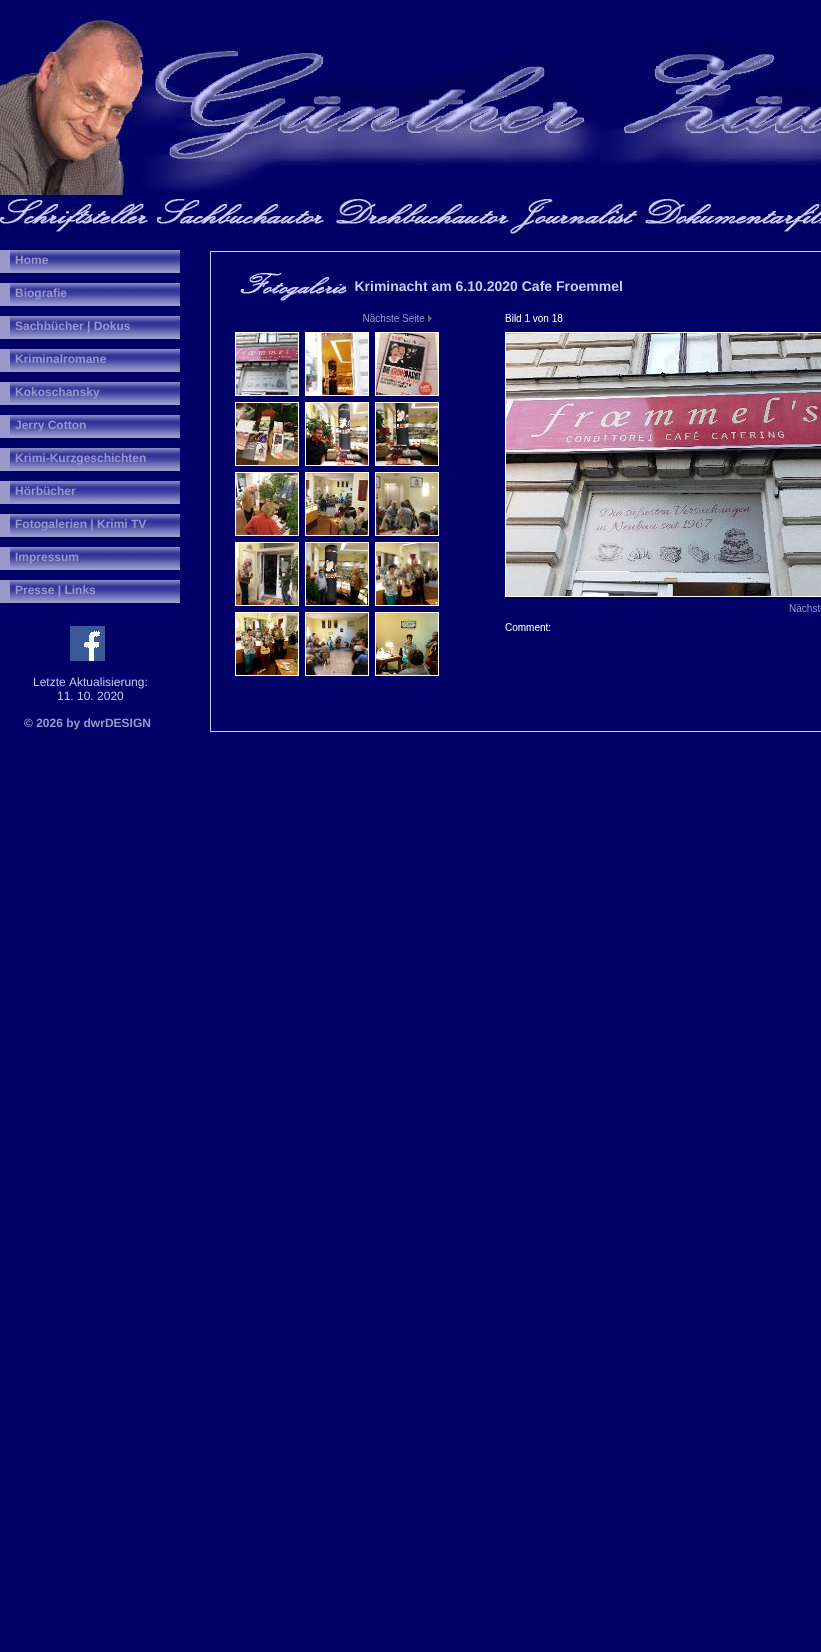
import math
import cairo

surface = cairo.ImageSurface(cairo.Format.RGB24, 821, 1652)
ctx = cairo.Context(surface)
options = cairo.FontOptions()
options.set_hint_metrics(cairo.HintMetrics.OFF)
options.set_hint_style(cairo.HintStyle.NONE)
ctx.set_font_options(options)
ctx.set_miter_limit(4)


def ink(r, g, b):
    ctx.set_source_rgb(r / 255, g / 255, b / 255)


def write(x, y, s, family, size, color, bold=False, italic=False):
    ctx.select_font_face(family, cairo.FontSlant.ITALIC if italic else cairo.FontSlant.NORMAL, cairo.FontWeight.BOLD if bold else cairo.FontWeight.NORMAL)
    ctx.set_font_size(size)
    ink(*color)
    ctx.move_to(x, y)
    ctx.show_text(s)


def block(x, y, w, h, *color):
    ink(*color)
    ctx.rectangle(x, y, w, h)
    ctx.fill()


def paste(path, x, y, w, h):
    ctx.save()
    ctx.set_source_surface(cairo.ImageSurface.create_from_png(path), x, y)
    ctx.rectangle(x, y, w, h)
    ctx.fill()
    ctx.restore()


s1 = dict(family="Liberation Sans", size=12, color=(153, 153, 204), bold=True)
s2 = dict(family="Liberation Sans", size=12, color=(204, 204, 255))
s3 = dict(family="Liberation Sans", size=14, color=(204, 204, 255), bold=True)

ink(0, 0, 102)
ctx.paint()
paste("pic1.png", 0, 15, 821, 220)
paste("pic2.png", 10, 250, 170, 22)
block(10, 272, 170, 1, 153, 153, 204)
block(0, 250, 10, 23, 153, 153, 204)
write(15, 264, "Home", **s1)
paste("pic2.png", 10, 283, 170, 22)
block(10, 305, 170, 1, 153, 153, 204)
block(0, 283, 10, 23, 153, 153, 204)
write(15, 297, "Biografie", **s1)
paste("pic2.png", 10, 316, 170, 22)
block(10, 338, 170, 1, 153, 153, 204)
block(0, 316, 10, 23, 153, 153, 204)
write(15, 330, "Sachbücher | Dokus", **s1)
paste("pic2.png", 10, 349, 170, 22)
block(10, 371, 170, 1, 153, 153, 204)
block(0, 349, 10, 23, 153, 153, 204)
write(15, 363, "Kriminalromane", **s1)
paste("pic2.png", 10, 382, 170, 22)
block(10, 404, 170, 1, 153, 153, 204)
block(0, 382, 10, 23, 153, 153, 204)
write(15, 396, "Kokoschansky", **s1)
paste("pic2.png", 10, 415, 170, 22)
block(10, 437, 170, 1, 153, 153, 204)
block(0, 415, 10, 23, 153, 153, 204)
write(15, 429, "Jerry Cotton", **s1)
paste("pic2.png", 10, 448, 170, 22)
block(10, 470, 170, 1, 153, 153, 204)
block(0, 448, 10, 23, 153, 153, 204)
write(15, 462, "Krimi-Kurzgeschichten", **s1)
paste("pic2.png", 10, 481, 170, 22)
block(10, 503, 170, 1, 153, 153, 204)
block(0, 481, 10, 23, 153, 153, 204)
write(15, 495, "Hörbücher", **s1)
paste("pic2.png", 10, 514, 170, 22)
block(10, 536, 170, 1, 153, 153, 204)
block(0, 514, 10, 23, 153, 153, 204)
write(15, 528, "Fotogalerien | Krimi TV", **s1)
paste("pic2.png", 10, 547, 170, 22)
block(10, 569, 170, 1, 153, 153, 204)
block(0, 547, 10, 23, 153, 153, 204)
write(15, 561, "Impressum", **s1)
paste("pic2.png", 10, 580, 170, 22)
block(10, 602, 170, 1, 153, 153, 204)
block(0, 580, 10, 23, 153, 153, 204)
write(15, 594, "Presse | Links", **s1)
paste("pic3.png", 70, 626, 35, 35)
write(33, 686, "Letzte Aktualisierung:", **s2)
write(57, 700, "11. 10. 2020", **s2)
write(24, 727, "© 2026 by dwrDESIGN", **s1)
ctx.rectangle(210.5, 251.5, 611, 480)
ink(204, 204, 255)
ctx.set_line_width(1)
ctx.stroke()
paste("pic4.png", 240, 273, 107, 28)
write(342, 291, "-  Kriminacht am 6.10.2020 Cafe Froemmel", **s3)
paste("pic5.png", 235, 314, 204, 362)
paste("pic6.png", 505, 314, 316, 317)
surface.write_to_png("screenshot.png")
